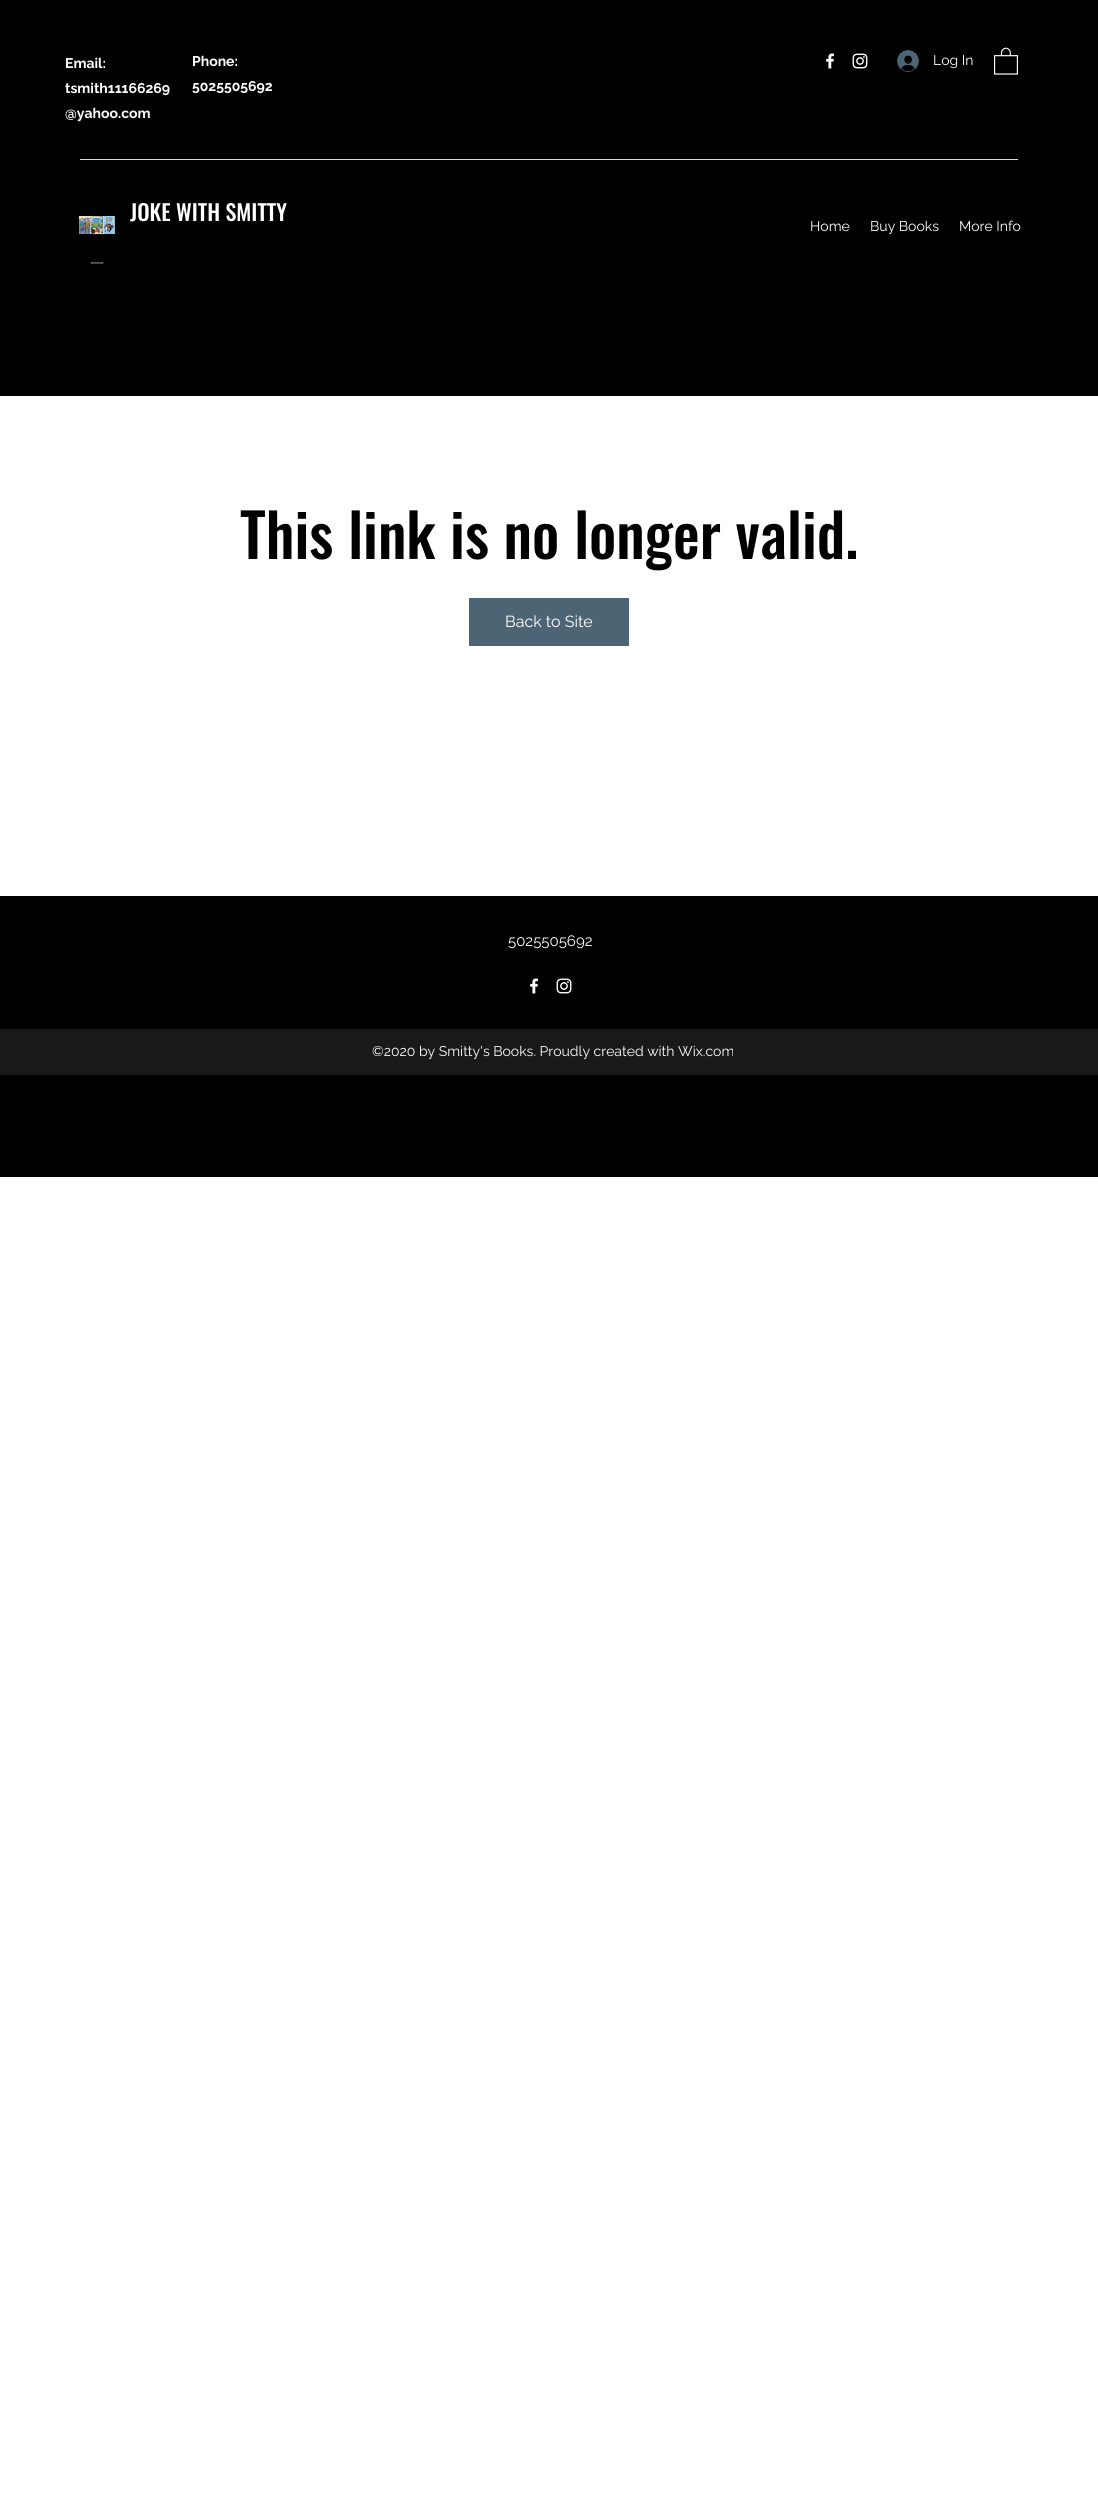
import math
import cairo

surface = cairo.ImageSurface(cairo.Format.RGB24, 1098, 2496)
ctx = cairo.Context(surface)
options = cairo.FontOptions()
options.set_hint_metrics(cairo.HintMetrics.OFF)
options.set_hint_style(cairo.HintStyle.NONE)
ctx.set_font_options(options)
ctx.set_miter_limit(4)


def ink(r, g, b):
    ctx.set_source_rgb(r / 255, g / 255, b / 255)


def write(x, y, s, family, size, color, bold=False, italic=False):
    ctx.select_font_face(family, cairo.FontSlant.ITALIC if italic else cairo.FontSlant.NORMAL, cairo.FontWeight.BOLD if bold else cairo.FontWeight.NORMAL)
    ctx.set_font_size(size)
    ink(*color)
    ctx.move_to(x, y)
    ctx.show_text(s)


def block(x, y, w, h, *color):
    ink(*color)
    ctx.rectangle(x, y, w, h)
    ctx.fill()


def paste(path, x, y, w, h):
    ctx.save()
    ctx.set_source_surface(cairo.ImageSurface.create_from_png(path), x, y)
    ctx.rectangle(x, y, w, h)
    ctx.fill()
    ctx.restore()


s1 = dict(family="Raleway", size=14, color=(255, 255, 255), bold=True)
s2 = dict(family="Raleway", size=14, color=(255, 255, 255))
s3 = dict(family="Oswald Medium", size=22, color=(255, 255, 255))
s4 = dict(family="Oswald Medium", size=60, color=(0, 0, 0))
s5 = dict(family="Raleway", size=16, color=(255, 255, 255))
s6 = dict(family="Raleway", size=15, color=(255, 255, 255))

ink(255, 255, 255)
ctx.paint()
block(0, 0, 1098, 396, 0, 0, 0)
write(65, 68, "Email:", **s1)
write(65, 93, "tsmith11166269", **s1)
write(65, 118, "@yahoo.com", **s1)
write(192, 66, "Phone:", **s1)
write(192, 91, "5025505692", **s1)
paste("pic1.png", 826, 53, 9, 16)
paste("pic2.png", 852, 53, 16, 16)
paste("pic3.png", 897, 50, 22, 22)
write(933, 65, "Log In", **s2)
paste("pic4.png", 994, 47, 24, 28)
block(80, 159, 938, 1, 217, 217, 217)
write(130, 221, "JOKE WITH SMITTY", **s3)
paste("pic5.png", 79, 215, 36, 49)
write(810, 231, "Home", **s2)
write(870, 231, "Buy Books", **s2)
write(959, 231, "More Info", **s2)
write(240, 559, "This link is no longer valid.", **s4)
block(469, 598, 160, 48, 76, 100, 116)
write(505, 627, "Back to Site", **s5)
block(0, 896, 1098, 281, 0, 0, 0)
write(508, 946, "5025505692", **s6)
paste("pic1.png", 530, 978, 9, 16)
paste("pic2.png", 556, 978, 16, 16)
block(0, 1029, 1098, 46, 25, 25, 25)
write(372, 1056, "©2020 by Smitty's Books. Proudly created with Wix.com", **s2)
surface.write_to_png("screenshot.png")
